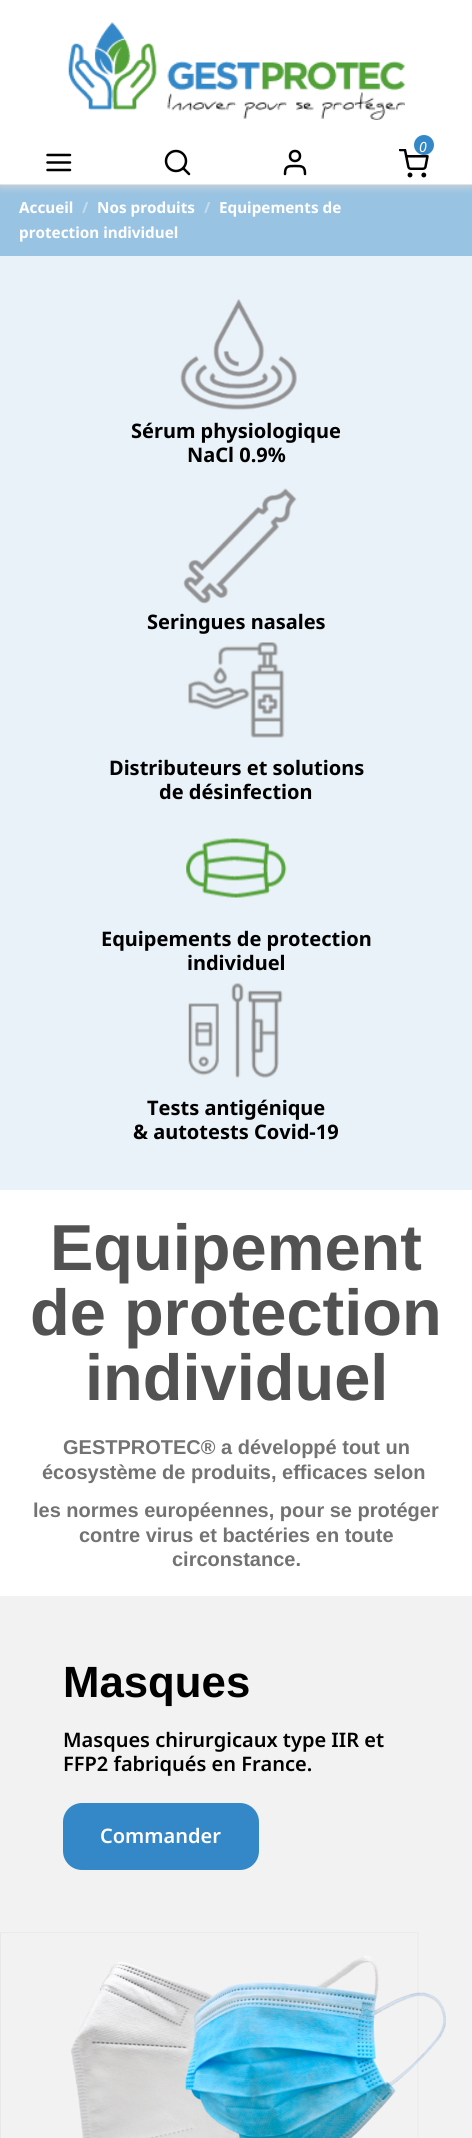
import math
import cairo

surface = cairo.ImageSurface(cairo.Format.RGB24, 472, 2138)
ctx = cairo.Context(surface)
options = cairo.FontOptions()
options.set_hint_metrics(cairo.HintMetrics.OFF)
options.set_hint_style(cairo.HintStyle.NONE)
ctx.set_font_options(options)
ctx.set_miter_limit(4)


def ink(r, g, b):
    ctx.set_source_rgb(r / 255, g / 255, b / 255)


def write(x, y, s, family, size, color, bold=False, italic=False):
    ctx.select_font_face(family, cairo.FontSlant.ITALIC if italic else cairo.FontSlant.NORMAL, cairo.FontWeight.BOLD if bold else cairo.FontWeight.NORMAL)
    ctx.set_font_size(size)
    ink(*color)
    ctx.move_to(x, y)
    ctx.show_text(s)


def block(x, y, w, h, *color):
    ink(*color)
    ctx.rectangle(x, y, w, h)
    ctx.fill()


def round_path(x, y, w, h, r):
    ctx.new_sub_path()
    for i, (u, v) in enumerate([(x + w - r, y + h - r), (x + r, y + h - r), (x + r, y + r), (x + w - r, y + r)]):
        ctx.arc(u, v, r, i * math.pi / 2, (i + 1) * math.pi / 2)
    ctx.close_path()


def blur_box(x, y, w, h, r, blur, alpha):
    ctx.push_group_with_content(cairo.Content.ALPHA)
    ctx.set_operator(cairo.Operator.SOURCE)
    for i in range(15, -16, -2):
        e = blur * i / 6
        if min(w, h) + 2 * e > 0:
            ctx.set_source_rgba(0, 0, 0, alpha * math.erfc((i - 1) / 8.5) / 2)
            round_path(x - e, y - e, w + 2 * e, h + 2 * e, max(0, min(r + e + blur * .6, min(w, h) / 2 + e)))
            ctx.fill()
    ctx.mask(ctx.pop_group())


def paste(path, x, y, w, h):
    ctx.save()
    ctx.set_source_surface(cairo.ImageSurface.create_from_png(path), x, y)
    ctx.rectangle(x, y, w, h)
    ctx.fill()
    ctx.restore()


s1 = dict(family="Noto Sans", size=14, color=(255, 255, 255), italic=True)
s2 = dict(family="Noto Sans", size=15.25, color=(255, 255, 255), bold=True)
s3 = dict(family="Noto Sans", size=15.25, color=(194, 219, 238), bold=True)
s4 = dict(family="Noto Sans", size=20, color=(0, 0, 0), bold=True)
s5 = dict(family="Liberation Sans", size=65, color=(82, 82, 82), bold=True)
s6 = dict(family="Liberation Sans", size=20, color=(115, 115, 115), bold=True)
s7 = dict(family="Liberation Sans", size=43.75, color=(0, 0, 0), bold=True)
s8 = dict(family="Noto Sans SemiBold", size=20, color=(0, 0, 0))
s9 = dict(family="Noto Sans SemiBold", size=20, color=(255, 255, 255))

ink(255, 255, 255)
ctx.paint()
block(0, 185, 472, 71, 153, 195, 226)
ctx.save()
ctx.rectangle(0, 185, 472, 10)
ctx.clip()
ink(215, 215, 215)
blur_box(0, 1, 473, 185, 0, 4.5, 1)
ctx.restore()
block(0, 184, 472, 1, 227, 227, 227)
paste("pic1.png", 68, 22, 337, 98)
paste("pic2.png", 399, 149, 30, 29)
ink(53, 136, 199)
ctx.arc(424, 145, 10, 0, 2 * math.pi)
ctx.fill()
write(419, 152, "0", **s1)
ctx.new_path()
ctx.move_to(47.5, 162.5)
ctx.line_to(70, 162.5)
ctx.move_to(47.5, 155)
ctx.line_to(70, 155)
ctx.move_to(47.5, 170)
ctx.line_to(70, 170)
ink(0, 0, 0)
ctx.set_line_width(2.5)
ctx.set_line_cap(cairo.LineCap.ROUND)
ctx.set_line_join(cairo.LineJoin.ROUND)
ctx.stroke()
ctx.arc(176, 161, 10, 0, 2 * math.pi)
ctx.set_line_cap(cairo.LineCap.BUTT)
ctx.set_line_join(cairo.LineJoin.MITER)
ctx.stroke()
ctx.new_path()
ctx.move_to(189, 174)
ctx.line_to(183.5, 168.5)
ctx.set_line_cap(cairo.LineCap.ROUND)
ctx.set_line_join(cairo.LineJoin.ROUND)
ctx.stroke()
ctx.arc(295, 156, 5, 0, 2 * math.pi)
ctx.set_line_cap(cairo.LineCap.BUTT)
ctx.set_line_join(cairo.LineJoin.MITER)
ctx.stroke()
ctx.new_path()
ctx.move_to(305, 174)
ctx.curve_to(305, 166, 302, 166, 295, 166)
ctx.curve_to(288, 166, 285, 166, 285, 174)
ctx.set_line_cap(cairo.LineCap.ROUND)
ctx.set_line_join(cairo.LineJoin.ROUND)
ctx.stroke()
write(19, 213, "Accueil", **s2)
write(82, 213, "/", **s3)
write(97, 213, "Nos produits", **s2)
write(204, 213, "/", **s3)
write(219, 213, "Equipements de", **s2)
write(19, 238, "protection individuel", **s2)
block(0, 256, 472, 934, 233, 242, 248)
paste("pic3.png", 180, 299, 117, 111)
write(131, 438, "Sérum physiologique", **s4)
write(187, 462, "NaCl 0.9%", **s4)
paste("pic4.png", 183, 488, 114, 116)
write(147, 629, "Seringues nasales", **s4)
paste("pic5.png", 188, 642, 97, 96)
write(109, 775, "Distributeurs et solutions", **s4)
write(159, 799, "de désinfection", **s4)
paste("pic6.png", 186, 838, 101, 60)
write(101, 946, "Equipements de protection", **s4)
write(187, 970, "individuel", **s4)
paste("pic7.png", 188, 983, 95, 95)
write(147, 1115, "Tests antigénique", **s4)
write(133, 1139, "& autotests Covid-19", **s4)
write(50, 1270, "Equipement", **s5)
write(30, 1335, "de protection", **s5)
write(85, 1400, "individuel", **s5)
write(63, 1454, "GESTPROTEC® a développé tout un", **s6)
write(42, 1479, "écosystème de produits, efficaces selon", **s6)
write(33, 1517, "les normes européennes, pour se protéger", **s6)
write(79, 1542, "contre virus et bactéries en toute", **s6)
write(172, 1566, "circonstance.", **s6)
block(0, 1596, 472, 542, 242, 242, 242)
write(63, 1697, "Masques", **s7)
write(63, 1747, "Masques chirurgicaux type IIR et", **s8)
write(63, 1771, "FFP2 fabriqués en France.", **s8)
ink(53, 136, 199)
round_path(63, 1803, 196, 67, 19)
ctx.fill()
write(100, 1843, "Commander", **s9)
paste("pic8.png", 0, 1932, 446, 206)
surface.write_to_png("screenshot.png")
